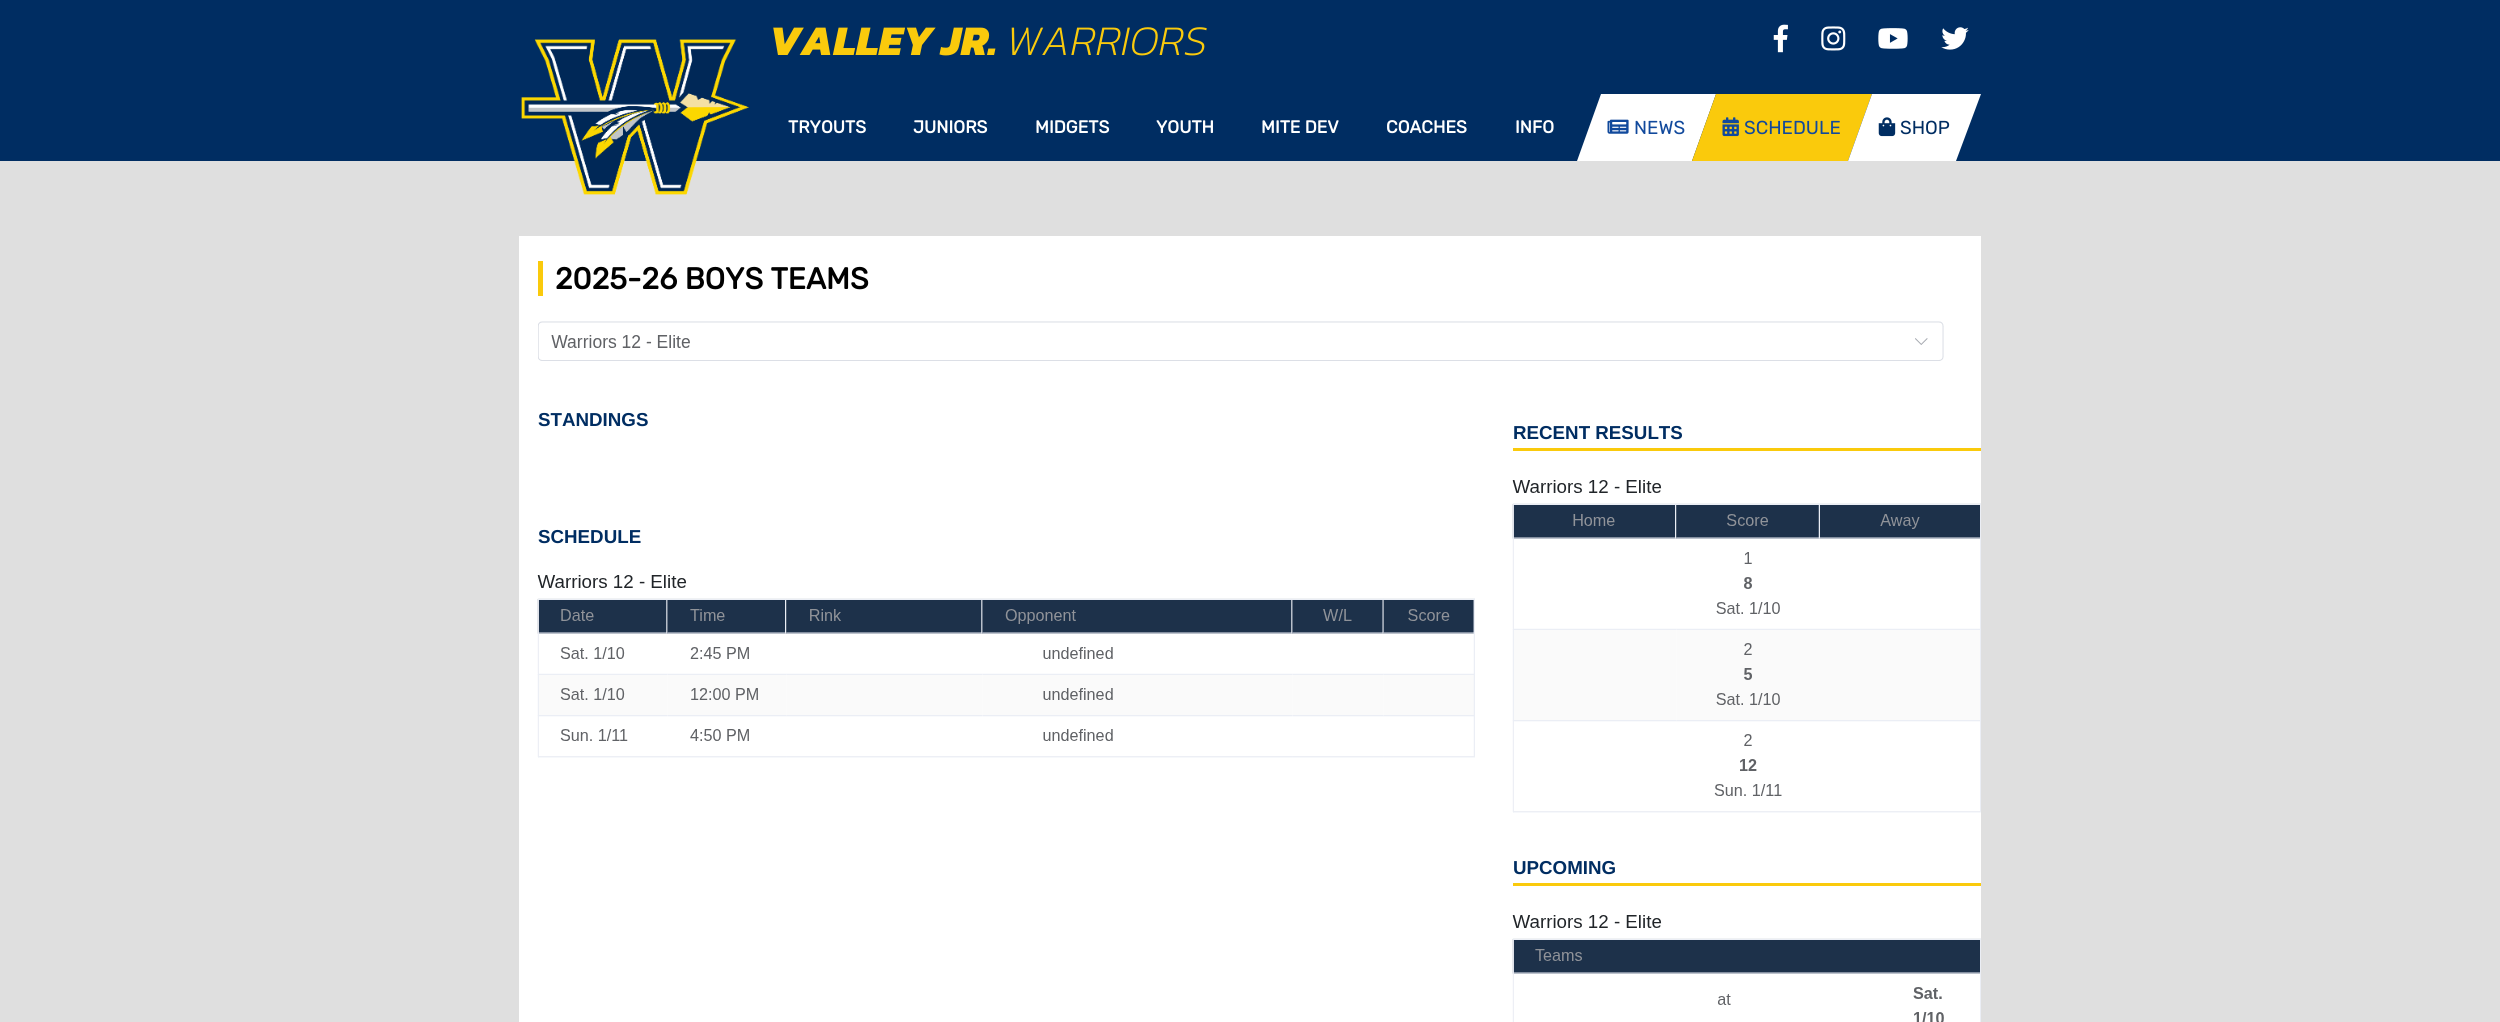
import math
import cairo

surface = cairo.ImageSurface(cairo.Format.RGB24, 2500, 1022)
ctx = cairo.Context(surface)
options = cairo.FontOptions()
options.set_hint_metrics(cairo.HintMetrics.OFF)
options.set_hint_style(cairo.HintStyle.NONE)
ctx.set_font_options(options)
ctx.set_miter_limit(4)


def ink(r, g, b):
    ctx.set_source_rgb(r / 255, g / 255, b / 255)


def write(x, y, s, family, size, color, bold=False, italic=False):
    ctx.select_font_face(family, cairo.FontSlant.ITALIC if italic else cairo.FontSlant.NORMAL, cairo.FontWeight.BOLD if bold else cairo.FontWeight.NORMAL)
    ctx.set_font_size(size)
    ink(*color)
    ctx.move_to(x, y)
    ctx.show_text(s)


def block(x, y, w, h, *color):
    ink(*color)
    ctx.rectangle(x, y, w, h)
    ctx.fill()


def paste(path, x, y, w, h):
    ctx.save()
    ctx.set_source_surface(cairo.ImageSurface.create_from_png(path), x, y)
    ctx.rectangle(x, y, w, h)
    ctx.fill()
    ctx.restore()


s1 = dict(family="Kanit ExtraBold", size=42.5, color=(250, 202, 12), italic=True)
s2 = dict(family="Kanit ExtraLight", size=42.5, color=(250, 202, 12), italic=True)
s3 = dict(family="Rubik", size=17.5, color=(255, 255, 255), bold=True)
s4 = dict(family="Rubik Light", size=18.75, color=(17, 73, 156))
s5 = dict(family="Rubik Light", size=18.75, color=(0, 45, 98))
s6 = dict(family="Rubik", size=30, color=(0, 0, 0), bold=True)
s7 = dict(family="Liberation Sans", size=18.75, color=(0, 45, 98), bold=True)

ink(223, 223, 223)
ctx.paint()
block(0, 0, 2500, 161, 0, 45, 98)
write(769, 55, "VALLEY JR.", **s1)
write(1006, 55, "WARRIORS", **s2)
paste("pic1.png", 1773, 24, 15, 29)
paste("pic2.png", 1821, 26, 25, 25)
paste("pic3.png", 1878, 28, 30, 21)
paste("pic4.png", 1941, 27, 28, 23)
paste("pic5.png", 521, 39, 228, 156)
write(788, 133, "TRYOUTS", **s3)
write(913, 133, "JUNIORS", **s3)
write(1035, 133, "MIDGETS", **s3)
write(1156, 133, "YOUTH", **s3)
write(1261, 133, "MITE DEV", **s3)
write(1386, 133, "COACHES", **s3)
write(1515, 133, "INFO", **s3)
ctx.new_path()
ctx.move_to(1601, 94)
ctx.line_to(1716, 94)
ctx.line_to(1692, 161)
ctx.line_to(1577, 161)
ctx.close_path()
ctx.fill()
paste("pic6.png", 1607, 119, 22, 15)
write(1634, 134, "NEWS", **s4)
ink(250, 202, 12)
ctx.new_path()
ctx.move_to(1716, 94)
ctx.line_to(1872, 94)
ctx.line_to(1848, 161)
ctx.line_to(1692, 161)
ctx.close_path()
ctx.fill()
paste("pic7.png", 1722, 117, 17, 20)
write(1744, 134, "SCHEDULE", **s4)
ink(255, 255, 255)
ctx.new_path()
ctx.move_to(1872, 94)
ctx.line_to(1981, 94)
ctx.line_to(1956, 161)
ctx.line_to(1848, 161)
ctx.close_path()
ctx.fill()
paste("pic8.png", 1878, 117, 18, 20)
write(1900, 134, "SHOP", **s5)
block(519, 236, 1462, 786, 255, 255, 255)
block(538, 261, 5, 35, 250, 202, 12)
write(555, 289, "2025-26 BOYS TEAMS", **s6)
paste("pic9.png", 538, 321, 1406, 40)
write(538, 426, "STANDINGS", **s7)
write(538, 543, "SCHEDULE", **s7)
paste("pic10.png", 537, 575, 938, 183)
write(1513, 439, "RECENT RESULTS", **s7)
block(1513, 448, 468, 3, 250, 202, 12)
paste("pic11.png", 1512, 480, 469, 333)
write(1513, 874, "UPCOMING", **s7)
block(1513, 883, 468, 3, 250, 202, 12)
paste("pic12.png", 1512, 915, 469, 107)
surface.write_to_png("screenshot.png")
